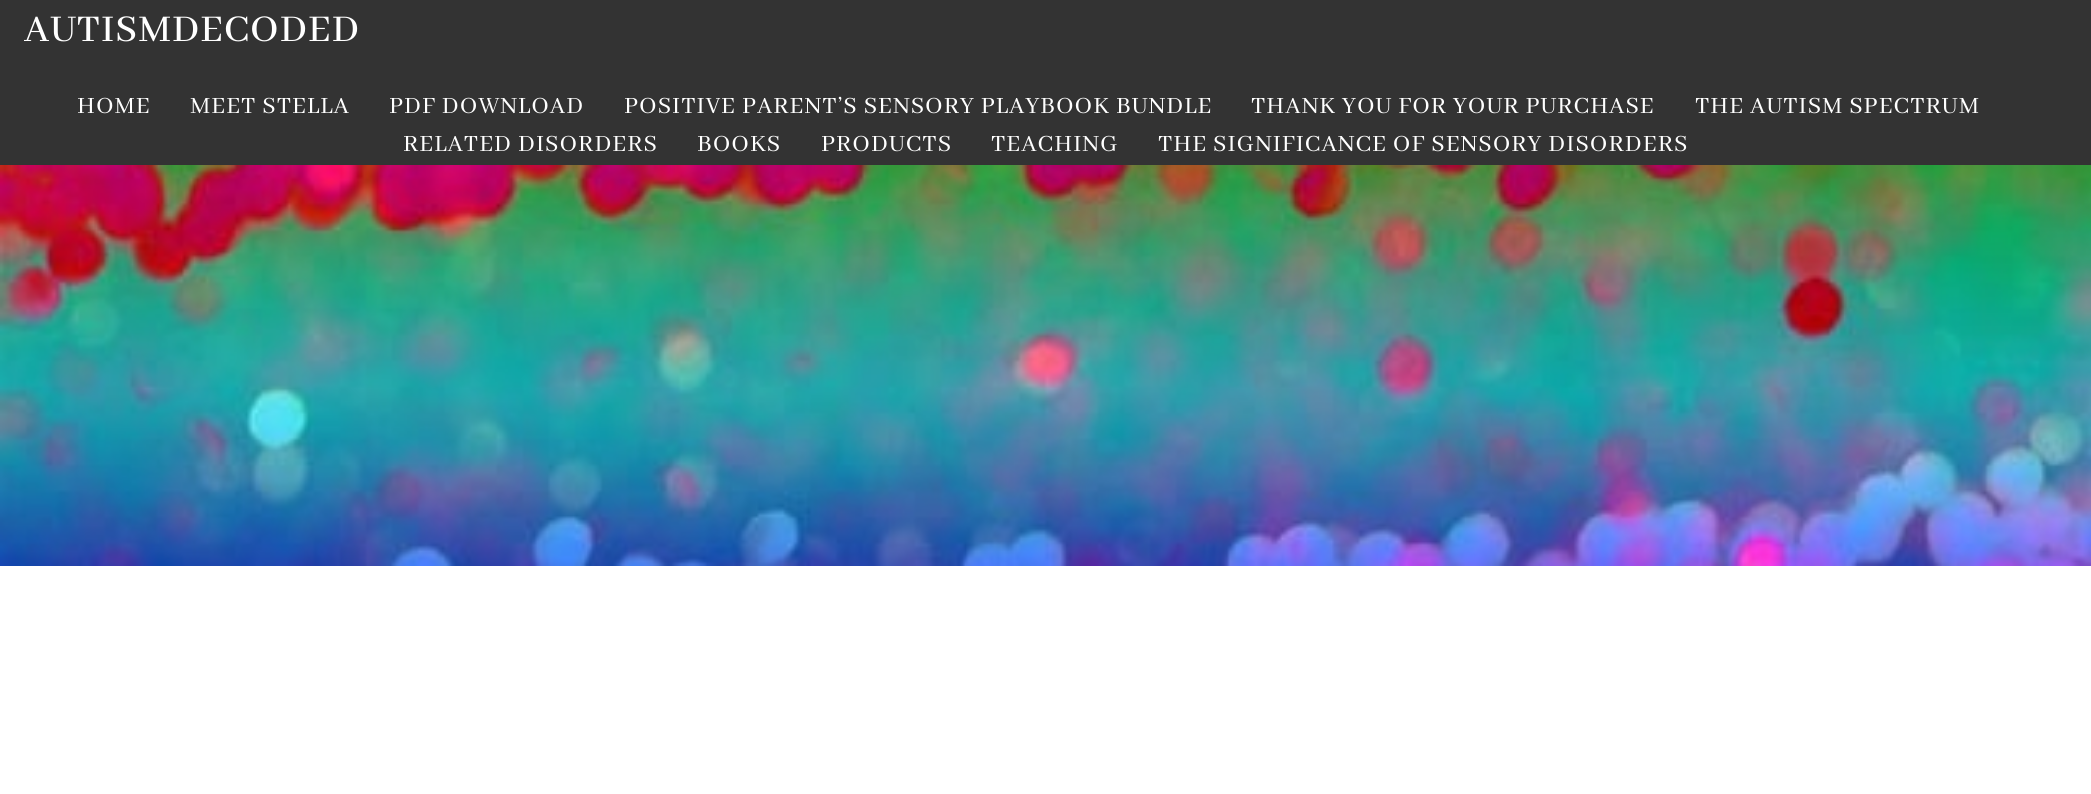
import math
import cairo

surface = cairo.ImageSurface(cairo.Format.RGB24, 2091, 794)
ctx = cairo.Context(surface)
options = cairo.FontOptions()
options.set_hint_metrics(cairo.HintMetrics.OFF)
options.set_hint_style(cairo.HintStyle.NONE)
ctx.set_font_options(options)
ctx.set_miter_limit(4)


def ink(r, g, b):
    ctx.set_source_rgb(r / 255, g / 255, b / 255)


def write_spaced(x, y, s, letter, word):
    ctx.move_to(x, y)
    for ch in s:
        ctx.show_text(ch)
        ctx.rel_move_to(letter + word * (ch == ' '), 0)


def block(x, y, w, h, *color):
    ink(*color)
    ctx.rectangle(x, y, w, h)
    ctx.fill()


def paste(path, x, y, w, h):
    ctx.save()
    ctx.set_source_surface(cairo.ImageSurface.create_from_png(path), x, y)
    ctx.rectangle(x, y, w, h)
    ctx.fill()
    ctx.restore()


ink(51, 51, 51)
ctx.paint()
ctx.select_font_face("Abhaya Libre Medium")
ctx.set_font_size(41.5)
ink(255, 255, 255)
write_spaced(24, 41, "AUTISMDECODED", 1, 0)
ctx.select_font_face("Abhaya Libre")
ctx.set_font_size(25.6)
write_spaced(77, 113, "HOME", 1, 0)
write_spaced(190, 113, "MEET STELLA", 1, 0)
write_spaced(389, 113, "PDF DOWNLOAD", 1, 0)
write_spaced(624, 113, "POSITIVE PARENT’S SENSORY PLAYBOOK BUNDLE", 1, 0)
write_spaced(1251, 113, "THANK YOU FOR YOUR PURCHASE", 1, 0)
write_spaced(1695, 113, "THE AUTISM SPECTRUM", 1, 0)
write_spaced(403, 151, "RELATED DISORDERS", 1, 0)
write_spaced(697, 151, "BOOKS", 1, 0)
write_spaced(821, 151, "PRODUCTS", 1, 0)
write_spaced(991, 151, "TEACHING", 1, 0)
write_spaced(1158, 151, "THE SIGNIFICANCE OF SENSORY DISORDERS", 1, 0)
paste("pic1.png", 0, 165, 2091, 401)
block(0, 566, 2091, 228, 255, 255, 255)
surface.write_to_png("screenshot.png")
